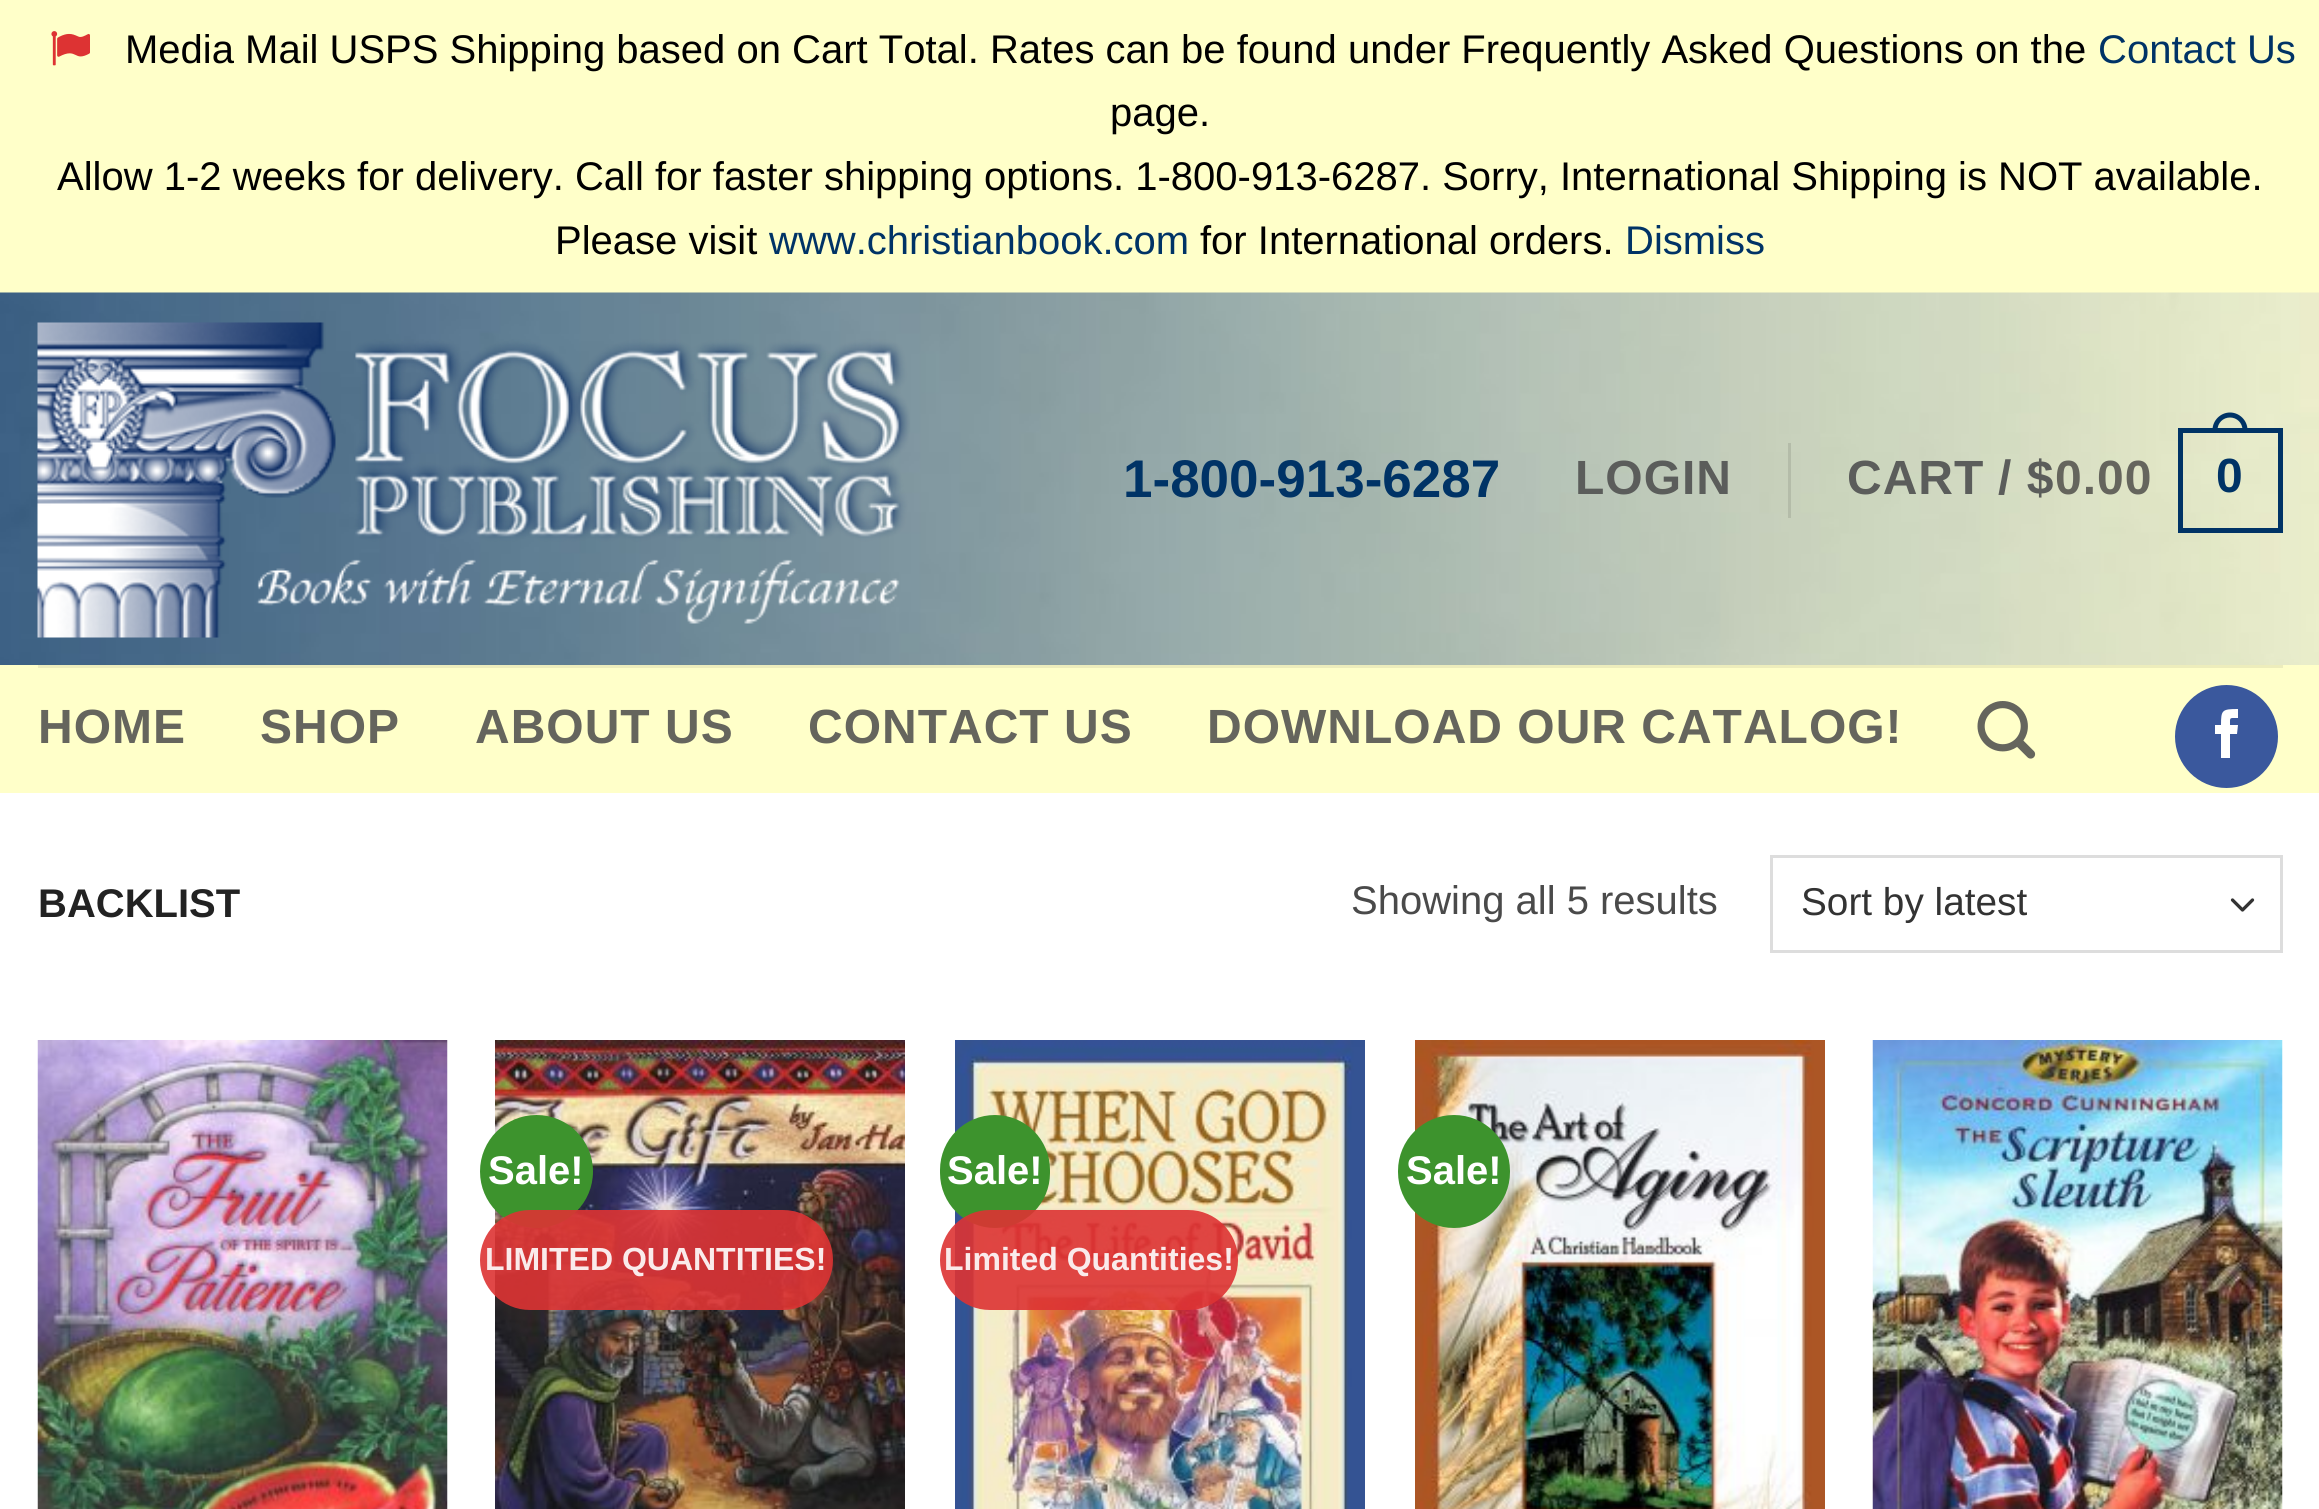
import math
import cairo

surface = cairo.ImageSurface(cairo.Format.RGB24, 2319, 1509)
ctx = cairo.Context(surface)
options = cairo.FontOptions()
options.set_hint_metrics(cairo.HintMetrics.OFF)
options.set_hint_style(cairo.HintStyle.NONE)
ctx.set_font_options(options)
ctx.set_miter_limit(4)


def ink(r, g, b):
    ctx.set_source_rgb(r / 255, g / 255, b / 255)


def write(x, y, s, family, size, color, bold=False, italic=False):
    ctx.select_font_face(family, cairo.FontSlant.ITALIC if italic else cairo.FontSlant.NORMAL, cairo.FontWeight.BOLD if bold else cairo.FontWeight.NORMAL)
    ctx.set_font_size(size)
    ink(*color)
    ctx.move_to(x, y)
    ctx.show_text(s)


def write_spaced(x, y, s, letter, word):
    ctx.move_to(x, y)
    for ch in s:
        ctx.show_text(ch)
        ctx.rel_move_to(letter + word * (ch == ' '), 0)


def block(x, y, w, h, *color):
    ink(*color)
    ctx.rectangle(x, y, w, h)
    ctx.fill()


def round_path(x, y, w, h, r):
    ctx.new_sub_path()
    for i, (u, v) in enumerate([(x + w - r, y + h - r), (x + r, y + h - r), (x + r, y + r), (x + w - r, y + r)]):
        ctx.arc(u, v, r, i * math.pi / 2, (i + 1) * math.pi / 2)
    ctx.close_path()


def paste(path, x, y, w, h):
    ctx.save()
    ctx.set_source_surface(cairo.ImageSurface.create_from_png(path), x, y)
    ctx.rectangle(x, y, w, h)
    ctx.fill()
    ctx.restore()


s1 = dict(family="Liberation Sans", size=40, color=(0, 0, 0))
s2 = dict(family="Liberation Sans", size=40, color=(0, 51, 102))
s3 = dict(family="Liberation Sans", size=53, color=(0, 51, 102), bold=True)
s4 = dict(family="Liberation Sans", size=40, color=(34, 34, 34), bold=True)
s5 = dict(family="Liberation Sans", size=40, color=(74, 74, 74))
s6 = dict(family="Liberation Sans", size=38.75, color=(51, 51, 51))
s7 = dict(family="Liberation Sans", size=40, color=(255, 255, 255), bold=True)
s8 = dict(family="Liberation Sans", size=32, color=(250, 235, 235), bold=True)

ink(255, 255, 201)
ctx.paint()
paste("pic1.png", 51, 31, 39, 35)
write(125, 63, "Media Mail USPS Shipping based on Cart Total. Rates can be found under Frequently Asked Questions on the", **s1)
write(2098, 63, "Contact Us", **s2)
write(1110, 126, "page.", **s1)
write(57, 190, "Allow 1-2 weeks for delivery. Call for faster shipping options. 1-800-913-6287. Sorry, International Shipping is NOT available.", **s1)
write(555, 254, "Please visit", **s1)
write(769, 254, "www.christianbook.com", **s2)
write(1200, 254, "for International orders.", **s1)
write(1625, 254, "Dismiss", **s2)
block(0, 793, 2319, 716, 255, 255, 255)
paste("pic2.png", 0, 292, 2319, 373)
paste("pic3.png", 37, 322, 873, 316)
write(1123, 497, "1-800-913-6287", **s3)
ctx.set_font_size(48)
ink(91, 93, 91)
write_spaced(1575, 494, "LOGIN", 1, 0)
block(1788, 443, 3, 75, 180, 188, 169)
ink(91, 93, 91)
write_spaced(1847, 494, "CART", 1, 0)
write_spaced(1998, 494, "/ $", 1, 0)
ink(101, 101, 93)
write_spaced(2055, 494, "0.00", 1, 0)
ctx.rectangle(2180.5, 430.5, 100, 100)
ink(0, 51, 102)
ctx.set_line_width(5)
ctx.stroke()
ctx.set_fill_rule(cairo.FillRule.EVEN_ODD)
ctx.new_path()
ctx.move_to(2230, 412.5)
ctx.curve_to(2239.5, 412.5, 2247.5, 420.5, 2247.5, 430)
ctx.line_to(2247.5, 432.5)
ctx.line_to(2212.5, 432.5)
ctx.line_to(2212.5, 430)
ctx.curve_to(2212.5, 420.5, 2220.5, 412.5, 2230, 412.5)
ctx.close_path()
ctx.move_to(2230, 417.5)
ctx.curve_to(2237, 417.5, 2242.5, 423, 2242.5, 430)
ctx.line_to(2242.5, 432.5)
ctx.line_to(2217.5, 432.5)
ctx.line_to(2217.5, 430)
ctx.curve_to(2217.5, 423, 2223, 417.5, 2230, 417.5)
ctx.close_path()
ctx.fill()
write_spaced(2216, 492, "0", 1, 0)
block(38, 665, 2245, 3, 237, 237, 188)
ink(101, 101, 93)
write_spaced(38, 743, "HOME", 1, 0)
write_spaced(260, 743, "SHOP", 1, 0)
write_spaced(475, 743, "ABOUT US", 1, 0)
write_spaced(808, 743, "CONTACT US", 1, 0)
write_spaced(1207, 743, "DOWNLOAD OUR CATALOG!", 1, 0)
paste("pic4.png", 1977, 701, 59, 58)
ink(58, 88, 157)
ctx.arc(2226.5, 736.5, 50, 0, 2 * math.pi)
ctx.fill_preserve()
ctx.set_line_width(3)
ctx.stroke()
ink(255, 255, 255)
ctx.set_fill_rule(cairo.FillRule.WINDING)
ctx.new_path()
ctx.move_to(2230, 758)
ctx.line_to(2221, 758)
ctx.line_to(2221, 734)
ctx.line_to(2215, 734)
ctx.line_to(2215, 725)
ctx.line_to(2221, 725)
ctx.curve_to(2221, 710, 2222, 709, 2238, 709)
ctx.line_to(2238, 718)
ctx.curve_to(2229, 718, 2230, 717, 2230, 725)
ctx.line_to(2238, 725)
ctx.line_to(2237, 734)
ctx.line_to(2230, 734)
ctx.close_path()
ctx.fill()
write(38, 917, "BACKLIST", **s4)
write(1351, 914, "Showing all 5 results", **s5)
ctx.new_path()
ctx.move_to(2232.5, 900)
ctx.line_to(2242.5, 910)
ctx.line_to(2252.5, 900)
ink(51, 51, 51)
ctx.set_line_width(3.3)
ctx.set_line_cap(cairo.LineCap.ROUND)
ctx.set_line_join(cairo.LineJoin.ROUND)
ctx.stroke()
ctx.rectangle(1771.5, 856.5, 510, 95)
ink(221, 221, 221)
ctx.set_line_width(3)
ctx.set_line_cap(cairo.LineCap.BUTT)
ctx.set_line_join(cairo.LineJoin.MITER)
ctx.stroke()
write(1801, 915, "Sort by latest", **s6)
paste("pic5.png", 37, 1040, 411, 469)
paste("pic6.png", 495, 1040, 410, 469)
ink(61, 147, 45)
ctx.arc(536.5, 1171.5, 56.5, 0, 2 * math.pi)
ctx.fill()
write(488, 1184, "Sale!", **s7)
ctx.set_source_rgba(0.867, 0.2, 0.2, 0.9)
round_path(480, 1210, 353, 100, 50)
ctx.fill()
write(485, 1270, "LIMITED QUANTITIES!", **s8)
paste("pic7.png", 955, 1040, 410, 469)
ink(61, 147, 45)
round_path(940, 1115, 110, 113, 55)
ctx.fill()
write(947, 1184, "Sale!", **s7)
ctx.set_source_rgba(0.867, 0.2, 0.2, 0.9)
round_path(940, 1210, 298, 100, 50)
ctx.fill()
write(944, 1270, "Limited Quantities!", **s8)
paste("pic8.png", 1415, 1040, 410, 469)
ink(61, 147, 45)
round_path(1398, 1115, 112, 113, 56)
ctx.fill()
write(1406, 1184, "Sale!", **s7)
paste("pic9.png", 1872, 1040, 411, 469)
surface.write_to_png("screenshot.png")
